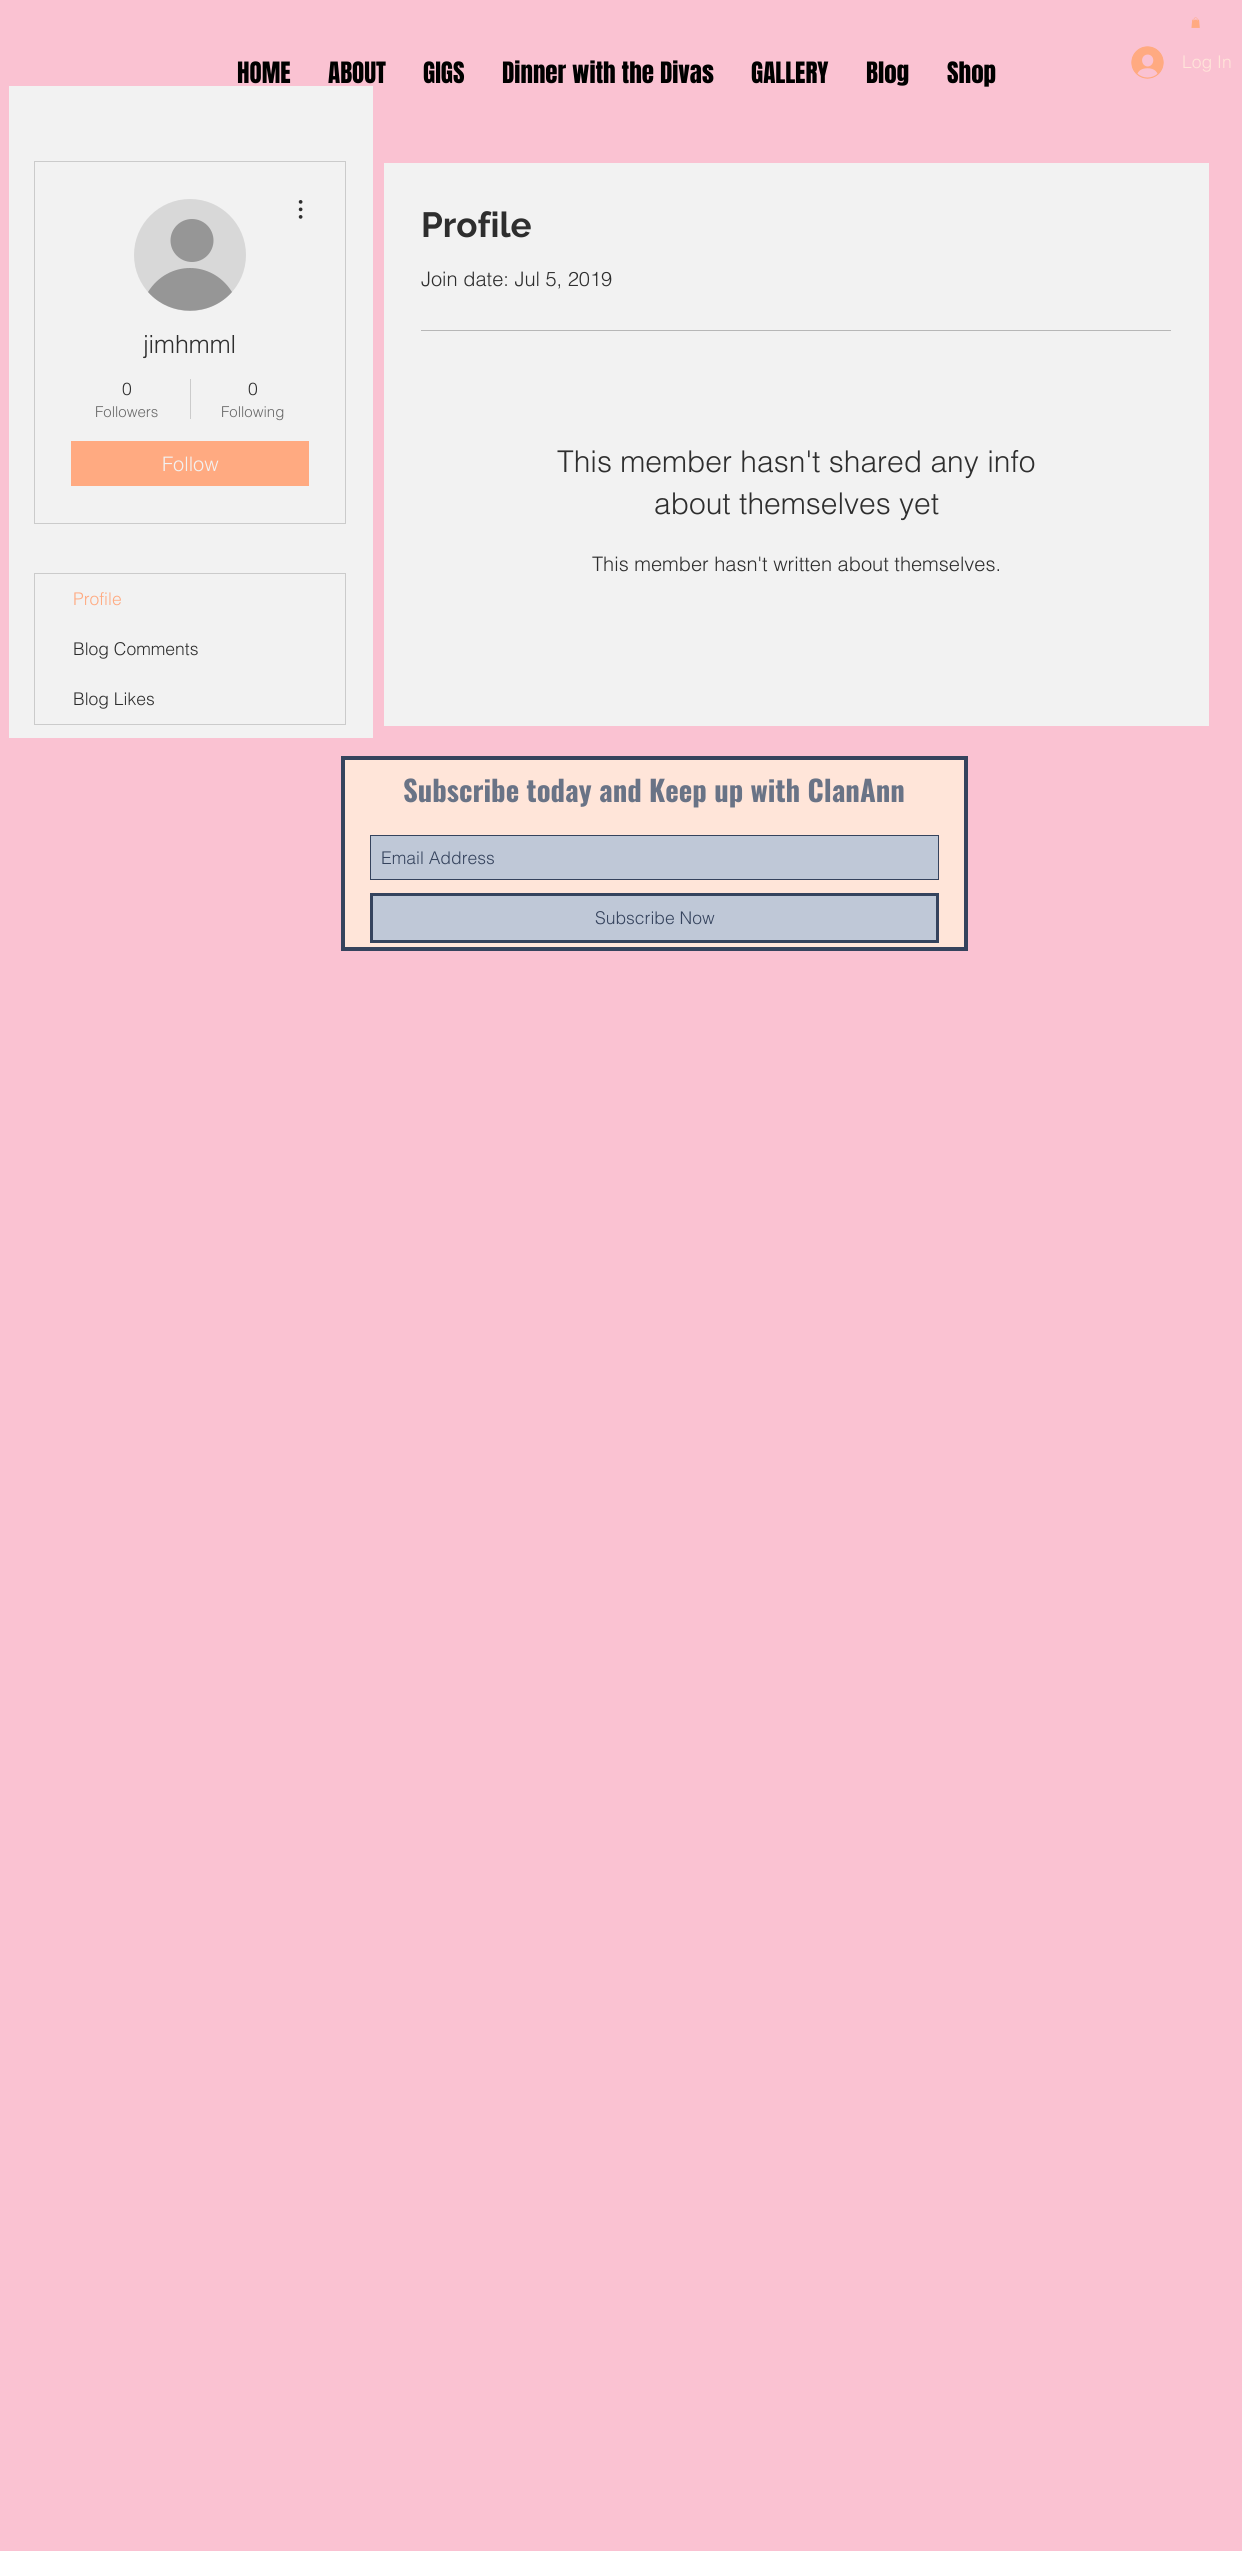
import math
import cairo

surface = cairo.ImageSurface(cairo.Format.RGB24, 1242, 2551)
ctx = cairo.Context(surface)
options = cairo.FontOptions()
options.set_hint_metrics(cairo.HintMetrics.OFF)
options.set_hint_style(cairo.HintStyle.NONE)
ctx.set_font_options(options)
ctx.set_miter_limit(4)


def ink(r, g, b):
    ctx.set_source_rgb(r / 255, g / 255, b / 255)


def write(x, y, s, family, size, color, bold=False, italic=False):
    ctx.select_font_face(family, cairo.FontSlant.ITALIC if italic else cairo.FontSlant.NORMAL, cairo.FontWeight.BOLD if bold else cairo.FontWeight.NORMAL)
    ctx.set_font_size(size)
    ink(*color)
    ctx.move_to(x, y)
    ctx.show_text(s)


def block(x, y, w, h, *color):
    ink(*color)
    ctx.rectangle(x, y, w, h)
    ctx.fill()


def paste(path, x, y, w, h):
    ctx.save()
    ctx.set_source_surface(cairo.ImageSurface.create_from_png(path), x, y)
    ctx.rectangle(x, y, w, h)
    ctx.fill()
    ctx.restore()


s1 = dict(family="Anton", size=25, color=(0, 0, 0))
s2 = dict(family="helvetica Light", size=17.5, color=(255, 229, 217))
s3 = dict(family="helvetica Light", size=25, color=(46, 46, 46))
s4 = dict(family="helvetica Light", size=17.5, color=(46, 46, 46))
s5 = dict(family="helvetica Light", size=15, color=(105, 105, 105))
s6 = dict(family="helvetica Light", size=20, color=(242, 242, 242))
s7 = dict(family="helvetica Light", size=17.5, color=(255, 170, 129))
s8 = dict(family="Raleway", size=35, color=(46, 46, 46), bold=True)
s9 = dict(family="helvetica Light", size=20, color=(46, 46, 46))
s10 = dict(family="helvetica Light", size=30, color=(46, 46, 46))
s11 = dict(family="Oswald", size=28.75, color=(105, 115, 134), bold=True)
s12 = dict(family="helvetica Light", size=17.5, color=(53, 67, 93))

ink(250, 194, 210)
ctx.paint()
paste("pic1.png", 1191, 17, 9, 11)
write(237, 83, "HOME", **s1)
write(328, 83, "ABOUT", **s1)
write(423, 83, "GIGS", **s1)
write(502, 83, "Dinner with the Divas", **s1)
write(751, 83, "GALLERY", **s1)
write(866, 83, "Blog", **s1)
write(947, 83, "Shop", **s1)
paste("pic2.png", 1131, 46, 33, 33)
write(1182, 68, "Log In", **s2)
block(9, 86, 364, 652, 242, 242, 242)
ctx.rectangle(34.5, 161.5, 311, 362)
ink(203, 203, 203)
ctx.set_line_width(1)
ctx.stroke()
ink(216, 216, 216)
ctx.arc(190, 255, 56, 0, 2 * math.pi)
ctx.fill()
ink(150, 150, 150)
ctx.arc(192, 240.5, 21.5, 0, 2 * math.pi)
ctx.fill()
ctx.new_path()
ctx.move_to(232, 292)
ctx.curve_to(210, 317, 170, 317, 148, 292)
ctx.curve_to(168, 260, 212, 260, 232, 292)
ctx.close_path()
ctx.fill()
paste("pic3.png", 298, 200, 5, 19)
write(143, 353, "jimhmml", **s3)
write(122, 395, "0", **s4)
write(95, 417, "Followers", **s5)
block(190, 379, 1, 40, 203, 203, 203)
write(248, 395, "0", **s4)
write(221, 417, "Following", **s5)
block(71, 441, 238, 45, 255, 170, 129)
write(162, 471, "Follow", **s6)
ctx.rectangle(34.5, 573.5, 311, 151)
ink(203, 203, 203)
ctx.stroke()
write(73, 605, "Profile", **s7)
write(73, 655, "Blog Comments", **s4)
write(73, 705, "Blog Likes", **s4)
block(384, 163, 825, 563, 242, 242, 242)
write(421, 237, "Profile", **s8)
write(421, 286, "Join date: Jul 5, 2019", **s9)
block(421, 330, 750, 1, 183, 183, 183)
write(557, 472, "This member hasn't shared any info", **s10)
write(654, 514, "about themselves yet", **s10)
write(592, 571, "This member hasn't written about themselves.", **s9)
ink(255, 229, 217)
ctx.rectangle(343, 758, 623, 191)
ctx.fill_preserve()
ink(53, 67, 93)
ctx.set_line_width(4)
ctx.stroke()
write(403, 802, "Subscribe today and Keep up with ClanAnn", **s11)
ink(191, 200, 215)
ctx.rectangle(370.5, 835.5, 568, 44)
ctx.fill_preserve()
ink(53, 67, 93)
ctx.set_line_width(1)
ctx.stroke()
write(381, 864, "Email Address", **s12)
ink(191, 200, 215)
ctx.rectangle(371.5, 894.5, 566, 47)
ctx.fill_preserve()
ink(53, 67, 93)
ctx.set_line_width(3)
ctx.stroke()
write(595, 924, "Subscribe Now", **s12)
surface.write_to_png("screenshot.png")
